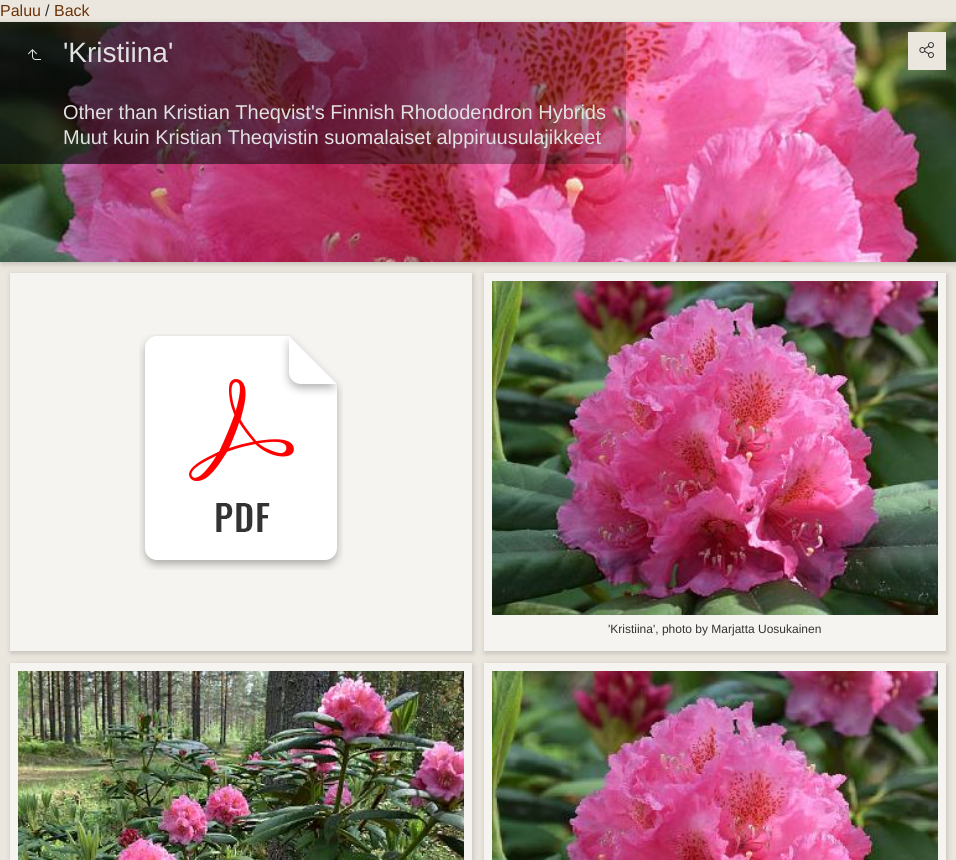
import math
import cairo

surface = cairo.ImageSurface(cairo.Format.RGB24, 956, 860)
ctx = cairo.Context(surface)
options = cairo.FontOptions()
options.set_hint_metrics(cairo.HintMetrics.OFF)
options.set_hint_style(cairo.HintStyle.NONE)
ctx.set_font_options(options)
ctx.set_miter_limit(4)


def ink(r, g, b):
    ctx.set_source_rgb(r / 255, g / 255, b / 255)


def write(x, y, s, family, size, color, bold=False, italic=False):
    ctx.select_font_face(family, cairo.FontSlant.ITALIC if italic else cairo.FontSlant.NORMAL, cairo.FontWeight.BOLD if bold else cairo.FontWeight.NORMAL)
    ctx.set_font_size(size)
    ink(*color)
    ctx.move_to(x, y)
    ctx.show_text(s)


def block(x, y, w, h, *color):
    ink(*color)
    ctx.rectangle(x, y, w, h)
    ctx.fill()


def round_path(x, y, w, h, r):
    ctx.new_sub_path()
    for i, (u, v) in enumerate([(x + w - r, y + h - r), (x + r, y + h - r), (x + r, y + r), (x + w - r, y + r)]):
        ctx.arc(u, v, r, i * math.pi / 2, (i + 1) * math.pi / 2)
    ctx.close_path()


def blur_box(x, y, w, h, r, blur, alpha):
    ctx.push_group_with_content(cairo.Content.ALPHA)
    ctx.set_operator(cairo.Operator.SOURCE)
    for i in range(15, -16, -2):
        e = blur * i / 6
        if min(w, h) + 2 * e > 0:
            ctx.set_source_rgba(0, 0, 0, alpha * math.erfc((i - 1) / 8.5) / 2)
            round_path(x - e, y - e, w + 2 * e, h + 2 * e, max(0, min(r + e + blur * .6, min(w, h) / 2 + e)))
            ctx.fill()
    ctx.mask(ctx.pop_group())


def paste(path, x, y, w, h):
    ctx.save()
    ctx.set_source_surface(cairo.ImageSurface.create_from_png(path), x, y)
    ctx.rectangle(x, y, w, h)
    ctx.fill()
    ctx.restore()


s1 = dict(family="Liberation Sans", size=16, color=(107, 51, 7))
s2 = dict(family="Liberation Sans", size=16, color=(51, 51, 51))
s3 = dict(family="Liberation Sans", size=28, color=(225, 225, 225))
s4 = dict(family="Liberation Sans", size=20, color=(225, 225, 225))
s5 = dict(family="Liberation Sans", size=12, color=(51, 51, 51))

ink(235, 231, 223)
ctx.paint()
write(0, 16, "Paluu", **s1)
write(45, 16, "/", **s2)
write(54, 16, "Back", **s1)
ink(0, 0, 0)
blur_box(1, 24, 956, 240, 0, 3, 0.19)
paste("pic1.png", 0, 22, 956, 240)
paste("pic2.png", 28, 49, 13, 11)
write(63, 62, "'Kristiina'", **s3)
write(63, 119, "Other than Kristian Theqvist's Finnish Rhododendron Hybrids", **s4)
write(63, 144, "Muut kuin Kristian Theqvistin suomalaiset alppiruusulajikkeet", **s4)
block(908, 32, 38, 38, 235, 231, 223)
paste("pic3.png", 919, 42, 15, 16)
ink(0, 0, 0)
blur_box(11, 275, 462, 378, 0, 3, 0.19)
block(10, 273, 462, 378, 246, 244, 240)
paste("pic4.png", 139, 334, 204, 236)
ink(0, 0, 0)
blur_box(485, 275, 462, 378, 0, 3, 0.19)
block(484, 273, 462, 378, 246, 244, 240)
paste("pic5.png", 492, 281, 446, 334)
write(608, 633, "'Kristiina', photo by Marjatta Uosukainen", **s5)
ink(0, 0, 0)
blur_box(11, 665, 462, 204, 0, 3, 0.19)
block(10, 663, 462, 197, 246, 244, 240)
paste("pic6.png", 18, 671, 446, 189)
ink(0, 0, 0)
blur_box(485, 665, 462, 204, 0, 3, 0.19)
block(484, 663, 462, 197, 246, 244, 240)
paste("pic7.png", 492, 671, 446, 189)
surface.write_to_png("screenshot.png")
